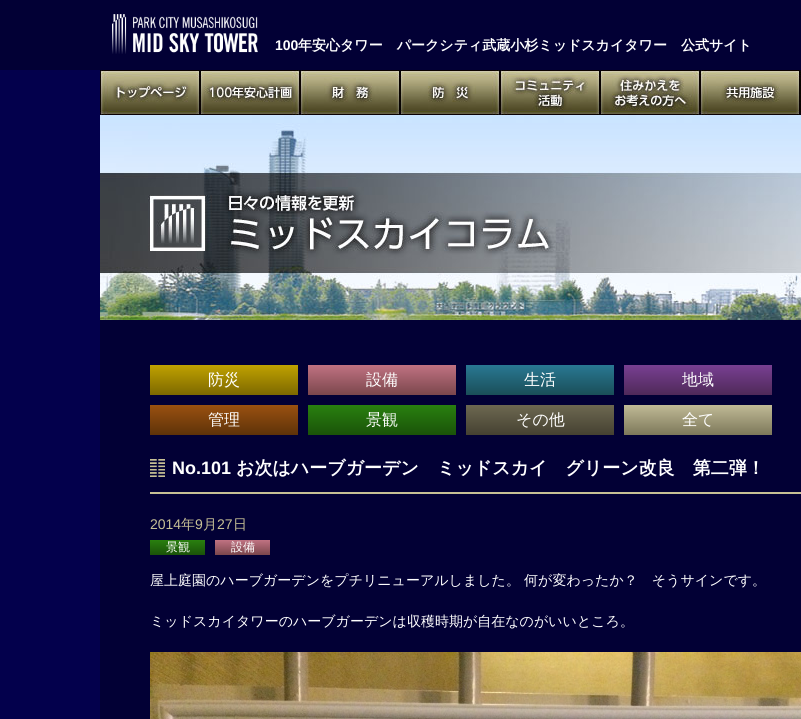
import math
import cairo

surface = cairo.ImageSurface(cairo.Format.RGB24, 801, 719)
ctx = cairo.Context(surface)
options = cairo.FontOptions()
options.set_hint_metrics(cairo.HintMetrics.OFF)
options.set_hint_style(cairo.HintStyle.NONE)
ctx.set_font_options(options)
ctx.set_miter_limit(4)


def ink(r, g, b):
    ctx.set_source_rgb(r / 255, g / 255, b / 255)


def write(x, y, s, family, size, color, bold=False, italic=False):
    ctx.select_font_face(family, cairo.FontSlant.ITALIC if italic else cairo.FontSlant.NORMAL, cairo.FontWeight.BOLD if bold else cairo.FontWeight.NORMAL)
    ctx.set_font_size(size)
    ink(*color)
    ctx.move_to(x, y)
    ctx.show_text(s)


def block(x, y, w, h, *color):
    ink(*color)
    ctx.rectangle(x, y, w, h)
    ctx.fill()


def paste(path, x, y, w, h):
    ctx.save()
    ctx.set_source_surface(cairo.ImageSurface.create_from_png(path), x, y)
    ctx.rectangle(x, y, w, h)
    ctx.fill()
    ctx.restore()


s1 = dict(family="Liberation Sans", size=14, color=(255, 255, 255), bold=True)
s2 = dict(family="WenQuanYi Zen Hei", size=14, color=(255, 255, 255), bold=True)
s3 = dict(family="WenQuanYi Zen Hei Medium", size=16, color=(255, 255, 255))
s4 = dict(family="Liberation Sans", size=18, color=(255, 255, 255), bold=True)
s5 = dict(family="WenQuanYi Zen Hei", size=18, color=(255, 255, 255), bold=True)
s6 = dict(family="Liberation Sans", size=14, color=(199, 192, 149))
s7 = dict(family="WenQuanYi Zen Hei Medium", size=14, color=(199, 192, 149))
s8 = dict(family="WenQuanYi Zen Hei Medium", size=12, color=(255, 255, 255))
s9 = dict(family="WenQuanYi Zen Hei Medium", size=14, color=(255, 255, 255))

ink(3, 0, 76)
ctx.paint()
block(0, 0, 801, 70, 2, 0, 53)
paste("pic1.png", 112, 14, 146, 40)
write(275, 50, "100", **s1)
write(298, 50, "年安心タワー　パークシティ武蔵小杉ミッドスカイタワー　公式サイト", **s2)
paste("pic2.png", 100, 70, 100, 45)
paste("pic3.png", 200, 70, 100, 45)
paste("pic4.png", 300, 70, 100, 45)
paste("pic5.png", 400, 70, 100, 45)
paste("pic6.png", 500, 70, 100, 45)
paste("pic7.png", 600, 70, 100, 45)
paste("pic8.png", 700, 70, 100, 45)
paste("pic9.png", 800, 70, 1, 45)
paste("pic10.png", 100, 115, 701, 205)
block(100, 320, 701, 399, 2, 0, 53)
gradient = cairo.LinearGradient(224, 365, 224, 395)
gradient.add_color_stop_rgba(0, 0.753, 0.635, 0, 1)
gradient.add_color_stop_rgba(1, 0.49, 0.408, 0, 1)
ctx.set_source(gradient)
ctx.rectangle(150, 365, 148, 30)
ctx.fill()
write(208, 385, "防災", **s3)
gradient = cairo.LinearGradient(382, 365, 382, 395)
gradient.add_color_stop_rgba(0, 0.753, 0.447, 0.51, 1)
gradient.add_color_stop_rgba(1, 0.482, 0.278, 0.298, 1)
ctx.set_source(gradient)
ctx.rectangle(308, 365, 148, 30)
ctx.fill()
write(366, 385, "設備", **s3)
gradient = cairo.LinearGradient(540, 365, 540, 395)
gradient.add_color_stop_rgba(0, 0.161, 0.471, 0.576, 1)
gradient.add_color_stop_rgba(1, 0.102, 0.306, 0.345, 1)
ctx.set_source(gradient)
ctx.rectangle(466, 365, 148, 30)
ctx.fill()
write(524, 385, "生活", **s3)
gradient = cairo.LinearGradient(698, 365, 698, 395)
gradient.add_color_stop_rgba(0, 0.471, 0.247, 0.573, 1)
gradient.add_color_stop_rgba(1, 0.31, 0.161, 0.349, 1)
ctx.set_source(gradient)
ctx.rectangle(624, 365, 148, 30)
ctx.fill()
write(682, 385, "地域", **s3)
gradient = cairo.LinearGradient(224, 405, 224, 435)
gradient.add_color_stop_rgba(0, 0.604, 0.318, 0.063, 1)
gradient.add_color_stop_rgba(1, 0.369, 0.196, 0.035, 1)
ctx.set_source(gradient)
ctx.rectangle(150, 405, 148, 30)
ctx.fill()
write(208, 425, "管理", **s3)
gradient = cairo.LinearGradient(382, 405, 382, 435)
gradient.add_color_stop_rgba(0, 0.161, 0.502, 0.059, 1)
gradient.add_color_stop_rgba(1, 0.102, 0.325, 0.035, 1)
ctx.set_source(gradient)
ctx.rectangle(308, 405, 148, 30)
ctx.fill()
write(366, 425, "景観", **s3)
gradient = cairo.LinearGradient(540, 405, 540, 435)
gradient.add_color_stop_rgba(0, 0.427, 0.408, 0.318, 1)
gradient.add_color_stop_rgba(1, 0.271, 0.255, 0.192, 1)
ctx.set_source(gradient)
ctx.rectangle(466, 405, 148, 30)
ctx.fill()
write(516, 425, "その他", **s3)
gradient = cairo.LinearGradient(698, 405, 698, 435)
gradient.add_color_stop_rgba(0, 0.753, 0.729, 0.588, 1)
gradient.add_color_stop_rgba(1, 0.49, 0.471, 0.353, 1)
ctx.set_source(gradient)
ctx.rectangle(624, 405, 148, 30)
ctx.fill()
write(682, 425, "全て", **s3)
block(150, 492, 651, 2, 199, 192, 149)
paste("pic11.png", 150, 459, 15, 18)
write(172, 474, "No.101", **s4)
write(236, 474, "お次はハーブガーデン　ミッドスカイ　グリーン改良　第二弾！", **s5)
write(150, 529, "2014", **s6)
write(181, 529, "年", **s7)
write(195, 529, "9", **s6)
write(203, 529, "月", **s7)
write(217, 529, "27", **s6)
write(233, 529, "日", **s7)
gradient = cairo.LinearGradient(178, 540, 178, 555)
gradient.add_color_stop_rgba(0, 0.161, 0.502, 0.059, 1)
gradient.add_color_stop_rgba(1, 0.102, 0.325, 0.035, 1)
ctx.set_source(gradient)
ctx.rectangle(150, 540, 55, 15)
ctx.fill()
write(166, 551, "景観", **s8)
gradient = cairo.LinearGradient(243, 540, 243, 555)
gradient.add_color_stop_rgba(0, 0.753, 0.447, 0.51, 1)
gradient.add_color_stop_rgba(1, 0.482, 0.278, 0.298, 1)
ctx.set_source(gradient)
ctx.rectangle(215, 540, 55, 15)
ctx.fill()
write(231, 551, "設備", **s8)
write(150, 585, "屋上庭園のハーブガーデンをプチリニューアルしました。 何が変わったか？　そうサインです。", **s9)
write(150, 626, "ミッドスカイタワーのハーブガーデンは収穫時期が自在なのがいいところ。", **s9)
paste("pic12.png", 150, 652, 651, 67)
surface.write_to_png("screenshot.png")
